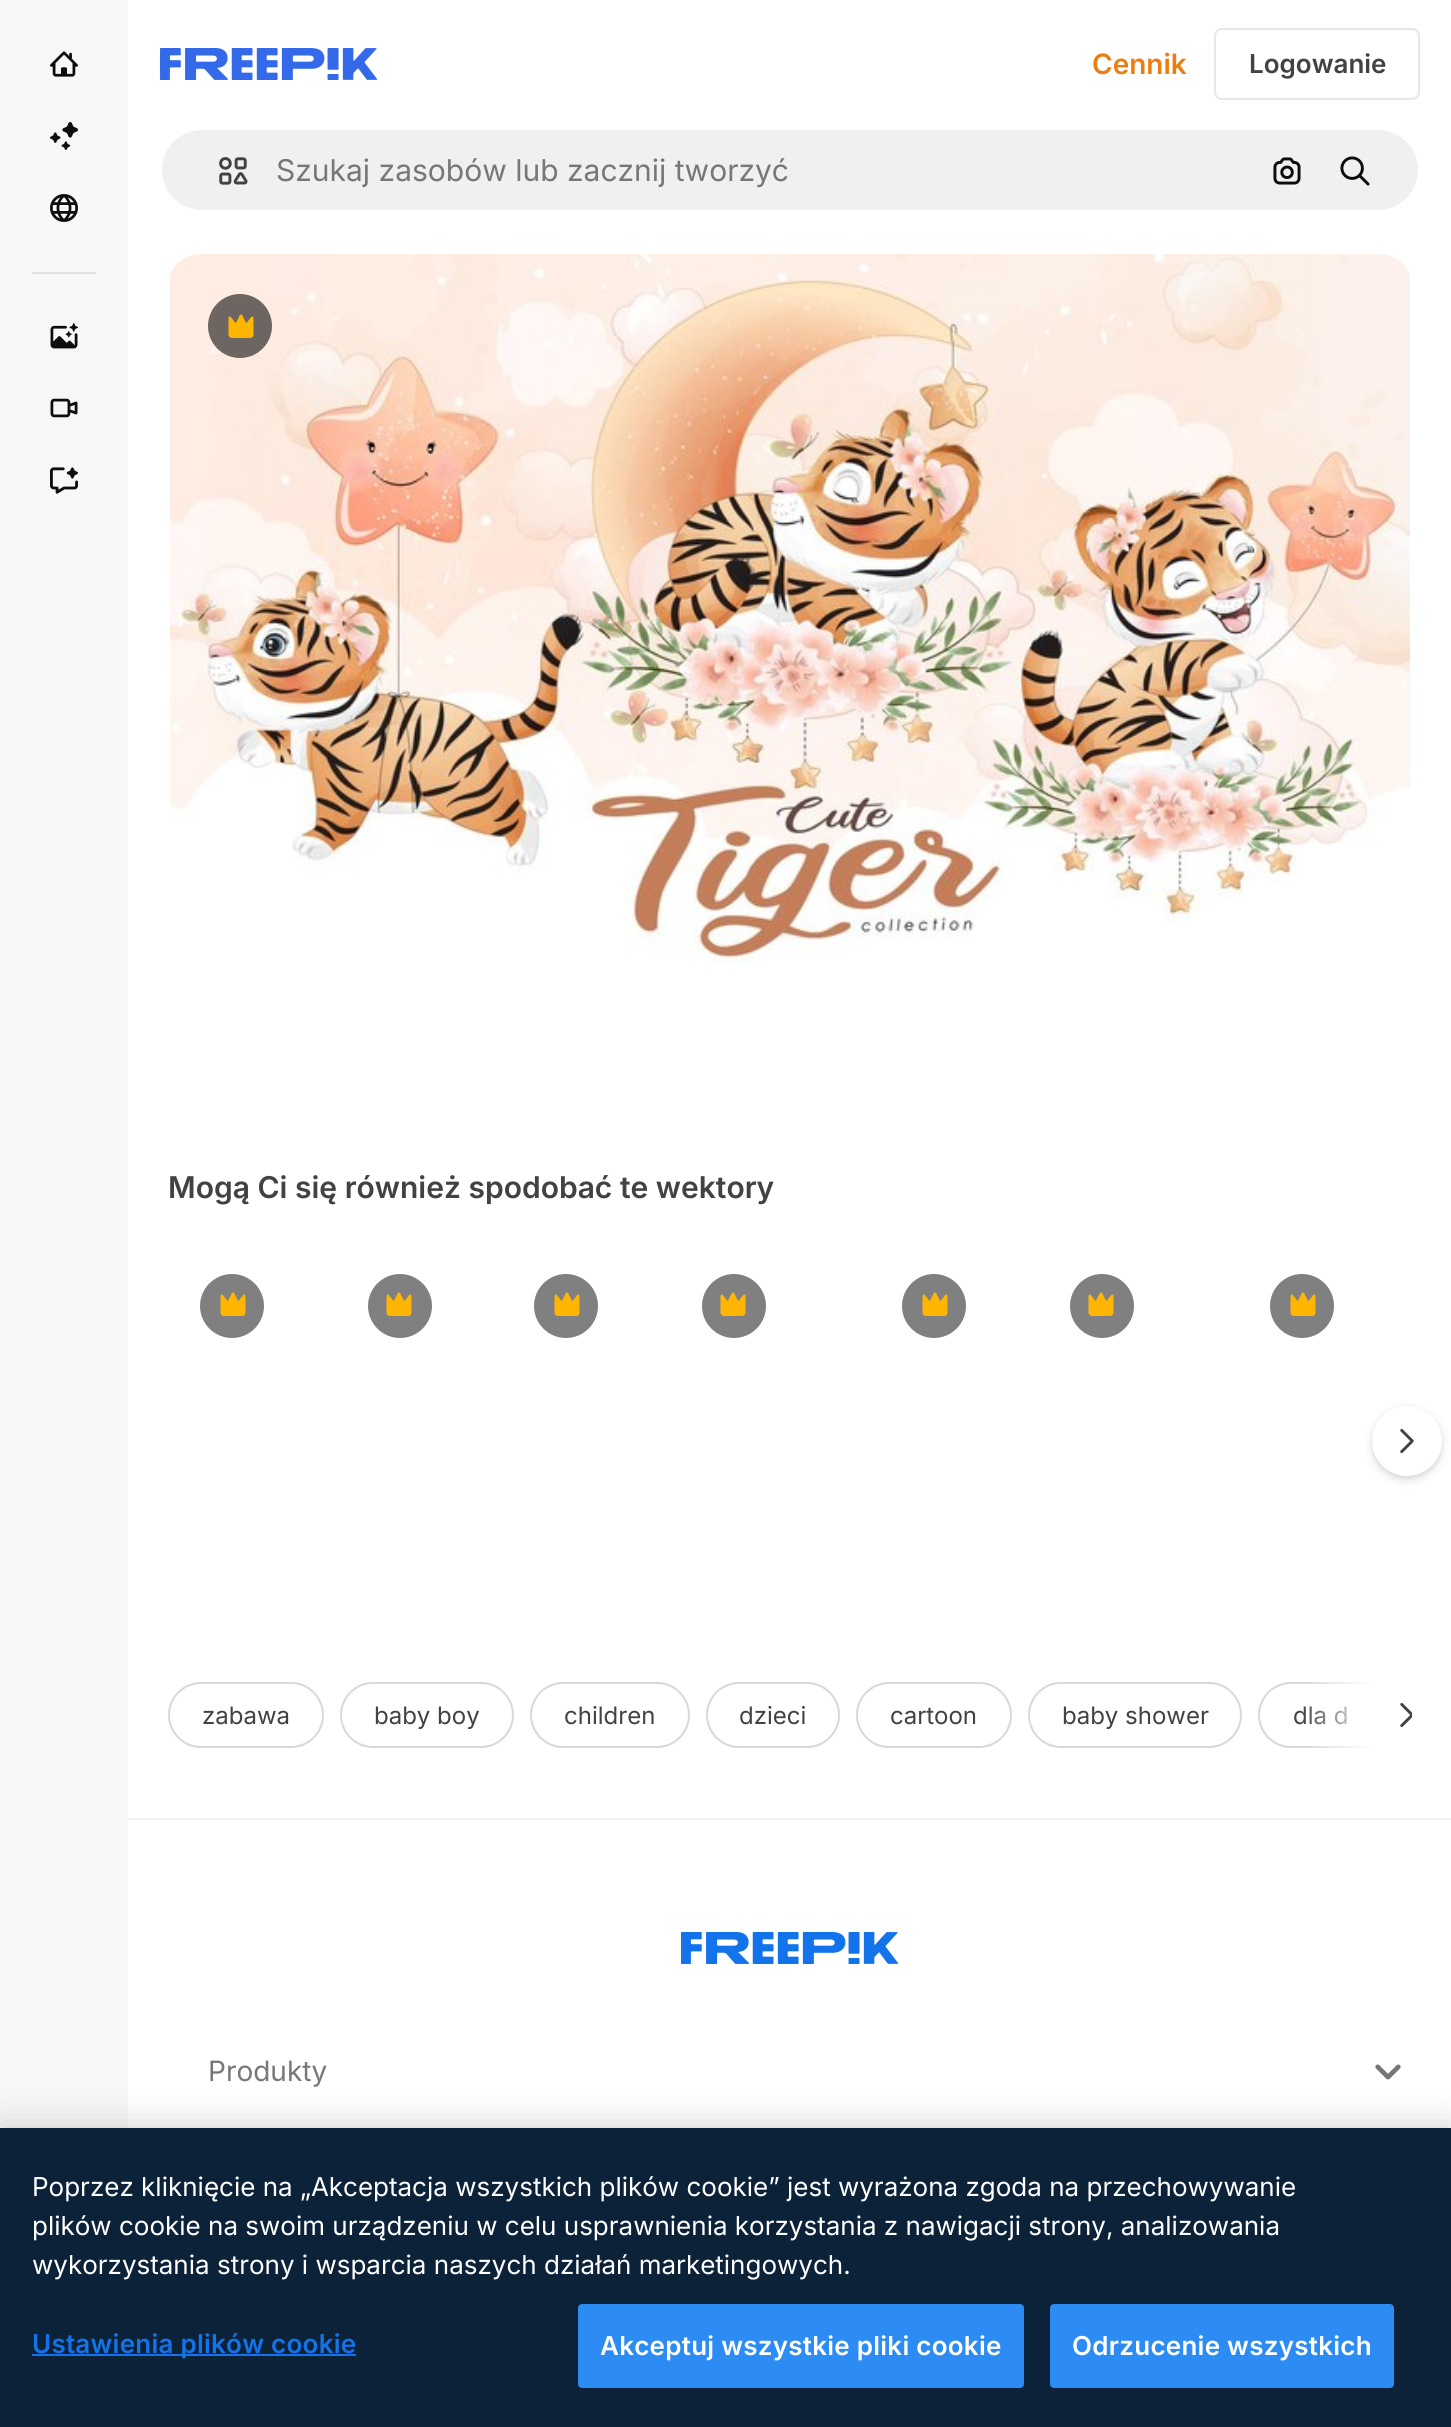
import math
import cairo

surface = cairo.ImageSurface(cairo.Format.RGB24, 1451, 2427)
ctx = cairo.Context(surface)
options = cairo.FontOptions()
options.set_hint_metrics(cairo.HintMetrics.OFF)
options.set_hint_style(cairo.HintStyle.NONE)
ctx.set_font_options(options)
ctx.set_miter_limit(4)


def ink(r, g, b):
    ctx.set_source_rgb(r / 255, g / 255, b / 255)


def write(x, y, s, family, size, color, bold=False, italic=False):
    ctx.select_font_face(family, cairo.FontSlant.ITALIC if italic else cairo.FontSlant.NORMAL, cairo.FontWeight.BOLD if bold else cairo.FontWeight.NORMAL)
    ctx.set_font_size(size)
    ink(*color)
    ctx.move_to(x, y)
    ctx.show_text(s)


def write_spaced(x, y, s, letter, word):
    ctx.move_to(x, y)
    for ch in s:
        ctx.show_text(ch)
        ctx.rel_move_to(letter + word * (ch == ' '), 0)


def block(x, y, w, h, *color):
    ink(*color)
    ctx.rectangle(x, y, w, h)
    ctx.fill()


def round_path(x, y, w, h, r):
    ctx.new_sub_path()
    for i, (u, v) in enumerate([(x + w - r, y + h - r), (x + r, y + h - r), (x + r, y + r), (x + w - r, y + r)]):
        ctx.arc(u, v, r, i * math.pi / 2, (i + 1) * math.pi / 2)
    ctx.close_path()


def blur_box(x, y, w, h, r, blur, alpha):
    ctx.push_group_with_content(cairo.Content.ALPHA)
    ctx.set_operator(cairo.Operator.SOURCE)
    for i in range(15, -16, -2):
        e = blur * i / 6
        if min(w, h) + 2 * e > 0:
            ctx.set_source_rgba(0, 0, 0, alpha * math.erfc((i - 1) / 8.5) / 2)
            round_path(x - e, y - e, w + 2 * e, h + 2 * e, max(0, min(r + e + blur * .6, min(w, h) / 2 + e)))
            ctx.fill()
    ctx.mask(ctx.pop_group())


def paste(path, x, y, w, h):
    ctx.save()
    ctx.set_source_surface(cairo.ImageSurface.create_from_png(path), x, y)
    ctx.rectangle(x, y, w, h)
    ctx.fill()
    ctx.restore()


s1 = dict(family="Inter SemiBold", size=28, color=(234, 126, 17))
s2 = dict(family="Inter SemiBold", size=26, color=(66, 66, 66))
s3 = dict(family="Inter", size=30, color=(119, 119, 119))
s4 = dict(family="Inter SemiBold", size=30, color=(66, 66, 66))
s5 = dict(family="Inter", size=24, color=(66, 66, 66))
s6 = dict(family="Inter", size=28, color=(119, 119, 119))
s7 = dict(family="Inter", size=26, color=(255, 255, 255))

ink(255, 255, 255)
ctx.paint()
block(0, 0, 128, 2128, 247, 247, 247)
paste("pic1.png", 50, 51, 28, 26)
paste("pic2.png", 50, 122, 28, 28)
paste("pic3.png", 50, 194, 28, 28)
block(32, 272, 64, 2, 224, 224, 224)
paste("pic4.png", 50, 323, 28, 26)
paste("pic5.png", 50, 398, 28, 20)
paste("pic6.png", 50, 467, 28, 27)
paste("pic7.png", 160, 48, 218, 32)
write(1092, 74, "Cennik", **s1)
round_path(1215, 29, 204, 70, 7)
ink(231, 231, 231)
ctx.stroke()
write(1249, 73, "Logowanie", **s2)
ink(240, 240, 240)
round_path(161, 129, 1258, 82, 41)
ctx.fill_preserve()
ink(255, 255, 255)
ctx.stroke()
paste("pic8.png", 219, 157, 29, 28)
write(276, 181, "Szukaj zasobów lub zacznij tworzyć", **s3)
paste("pic9.png", 1273, 157, 28, 28)
paste("pic10.png", 1340, 156, 30, 30)
paste("pic11.png", 170, 254, 1240, 710)
ctx.set_source_rgba(0.051, 0.051, 0.051, 0.6)
ctx.arc(240, 326, 32, 0, 2 * math.pi)
ctx.fill()
paste("pic12.png", 228, 314, 26, 24)
write(168, 1198, "Mogą Ci się również spodobać te wektory", **s4)
ink(128, 128, 128)
ctx.new_path()
ctx.arc(232, 1306, 32, 0, 2 * math.pi)
ctx.fill()
paste("pic13.png", 220, 1292, 26, 24)
ctx.arc(400, 1306, 32, 0, 2 * math.pi)
ctx.fill()
paste("pic13.png", 386, 1292, 26, 24)
ctx.arc(566, 1306, 32, 0, 2 * math.pi)
ctx.fill()
paste("pic13.png", 554, 1292, 26, 24)
ctx.arc(734, 1306, 32, 0, 2 * math.pi)
ctx.fill()
paste("pic13.png", 720, 1292, 26, 24)
ctx.arc(934, 1306, 32, 0, 2 * math.pi)
ctx.fill()
paste("pic13.png", 922, 1292, 26, 24)
ctx.arc(1102, 1306, 32, 0, 2 * math.pi)
ctx.fill()
paste("pic13.png", 1088, 1292, 26, 24)
ctx.arc(1302, 1306, 32, 0, 2 * math.pi)
ctx.fill()
paste("pic13.png", 1290, 1292, 26, 24)
ink(55, 73, 87)
blur_box(1372, 1410, 70, 70, 35, 5, 0.15)
blur_box(1372, 1408, 70, 70, 35, 2, 0.1)
ink(255, 255, 255)
ctx.arc(1407, 1441, 35, 0, 2 * math.pi)
ctx.fill()
paste("pic14.png", 1400, 1428, 14, 26)
round_path(169, 1683, 154, 64, 32)
ink(216, 216, 216)
ctx.stroke()
write(202, 1724, "zabawa", **s5)
round_path(341, 1683, 172, 64, 32)
ink(216, 216, 216)
ctx.stroke()
write(374, 1724, "baby boy", **s5)
round_path(531, 1683, 158, 64, 32)
ink(216, 216, 216)
ctx.stroke()
write(564, 1724, "children", **s5)
round_path(707, 1683, 132, 64, 32)
ink(216, 216, 216)
ctx.stroke()
write(739, 1724, "dzieci", **s5)
round_path(857, 1683, 154, 64, 32)
ink(216, 216, 216)
ctx.stroke()
write(890, 1724, "cartoon", **s5)
round_path(1029, 1683, 212, 64, 32)
ink(216, 216, 216)
ctx.stroke()
write(1062, 1724, "baby shower", **s5)
ctx.save()
ctx.rectangle(168, 1682, 1244, 66)
ctx.clip()
round_path(1259, 1683, 174, 64, 32)
ink(216, 216, 216)
ctx.stroke()
ctx.restore()
write(1293, 1724, "dla d", **s5)
block(1372, 1682, 40, 66, 255, 255, 255)
gradient = cairo.LinearGradient(1372, 1715, 1302, 1715)
gradient.add_color_stop_rgba(0, 1, 1, 1, 1)
gradient.add_color_stop_rgba(1, 1, 1, 1, 0)
ctx.set_source(gradient)
ctx.rectangle(1304, 1682, 68, 66)
ctx.fill()
paste("pic15.png", 1400, 1702, 12, 26)
block(128, 1818, 1323, 2, 240, 240, 240)
paste("pic16.png", 681, 1932, 218, 32)
write(208, 2081, "Produkty", **s6)
paste("pic17.png", 1375, 2064, 26, 16)
ink(0, 0, 0)
blur_box(0, 2128, 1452, 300, 0, 18, 0.2)
block(0, 2128, 1451, 299, 11, 34, 57)
write(32, 2196, "Poprzez kliknięcie na „Akceptacja wszystkich plików cookie” jest wyrażona zgoda na przechowywanie", **s7)
write(32, 2235, "plików cookie na swoim urządzeniu w celu usprawnienia korzystania z nawigacji strony, analizowania", **s7)
write(32, 2274, "wykorzystania strony i wsparcia naszych działań marketingowych.", **s7)
block(32, 2354, 324, 2, 18, 115, 235)
ctx.select_font_face("Inter SemiBold")
write_spaced(32, 2353, "Ustawienia plików cookie", 0.25, 0)
ink(44, 140, 244)
round_path(579, 2305, 444, 82, 3)
ctx.fill_preserve()
ctx.stroke()
ink(255, 255, 255)
write_spaced(600, 2355, "Akceptuj wszystkie pliki cookie", 0.25, 0)
ink(44, 140, 244)
round_path(1051, 2305, 342, 82, 3)
ctx.fill_preserve()
ctx.stroke()
ink(255, 255, 255)
write_spaced(1072, 2355, "Odrzucenie wszystkich", 0.25, 0)
surface.write_to_png("screenshot.png")
